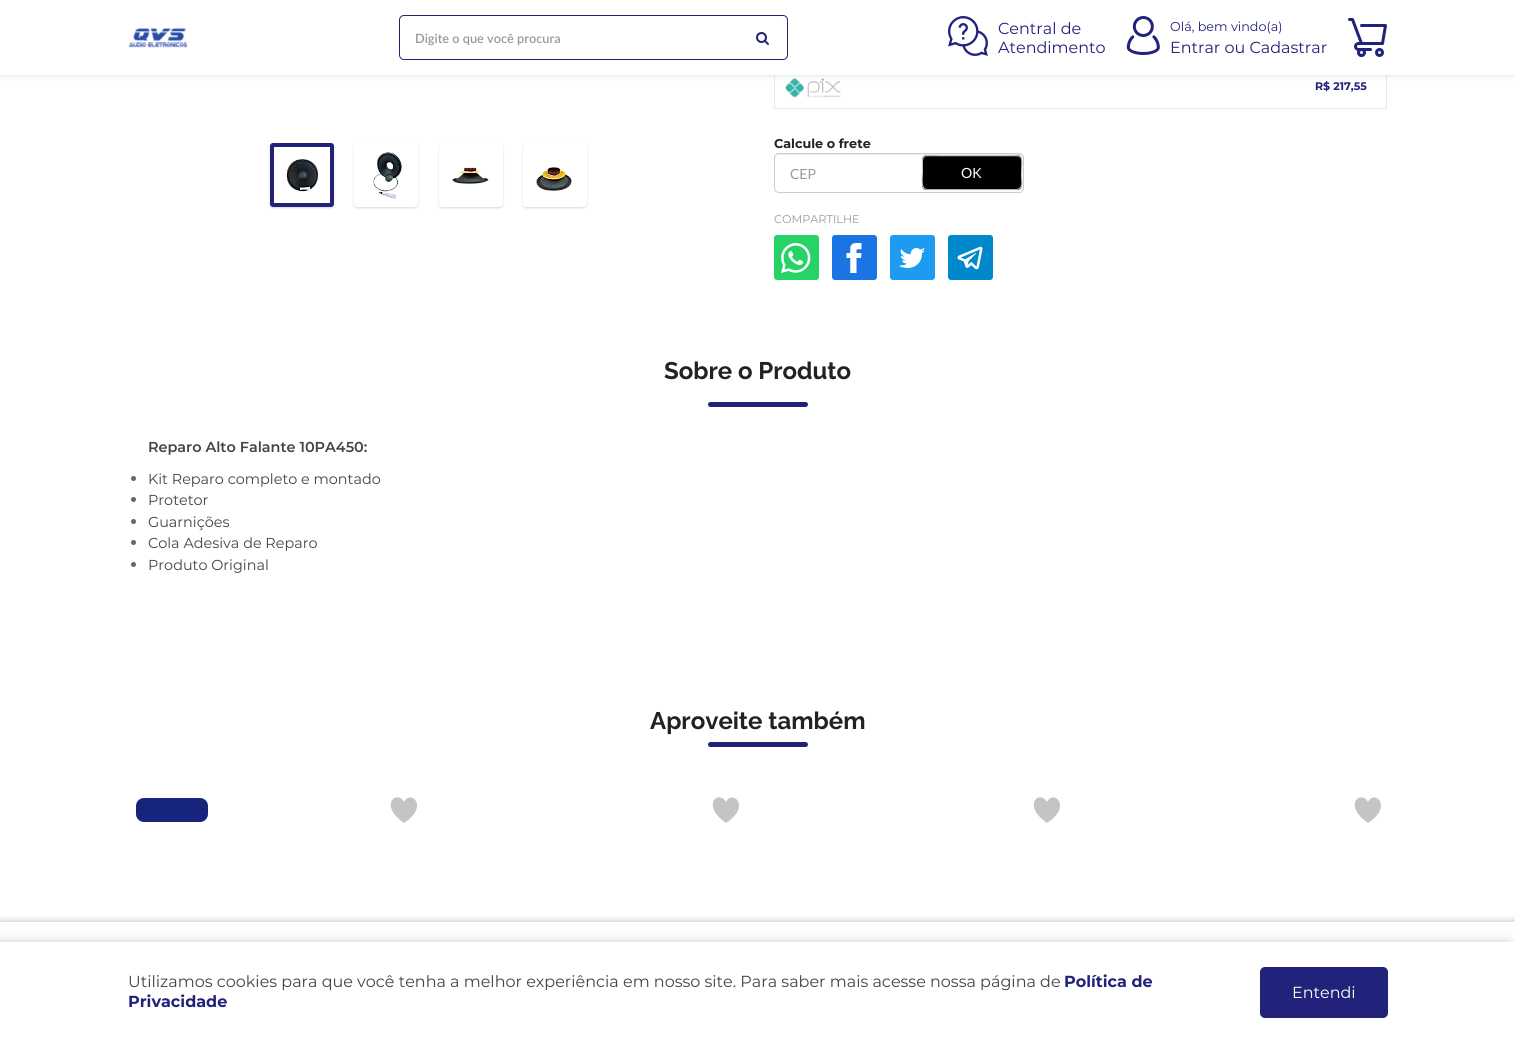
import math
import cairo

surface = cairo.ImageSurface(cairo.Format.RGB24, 1515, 1042)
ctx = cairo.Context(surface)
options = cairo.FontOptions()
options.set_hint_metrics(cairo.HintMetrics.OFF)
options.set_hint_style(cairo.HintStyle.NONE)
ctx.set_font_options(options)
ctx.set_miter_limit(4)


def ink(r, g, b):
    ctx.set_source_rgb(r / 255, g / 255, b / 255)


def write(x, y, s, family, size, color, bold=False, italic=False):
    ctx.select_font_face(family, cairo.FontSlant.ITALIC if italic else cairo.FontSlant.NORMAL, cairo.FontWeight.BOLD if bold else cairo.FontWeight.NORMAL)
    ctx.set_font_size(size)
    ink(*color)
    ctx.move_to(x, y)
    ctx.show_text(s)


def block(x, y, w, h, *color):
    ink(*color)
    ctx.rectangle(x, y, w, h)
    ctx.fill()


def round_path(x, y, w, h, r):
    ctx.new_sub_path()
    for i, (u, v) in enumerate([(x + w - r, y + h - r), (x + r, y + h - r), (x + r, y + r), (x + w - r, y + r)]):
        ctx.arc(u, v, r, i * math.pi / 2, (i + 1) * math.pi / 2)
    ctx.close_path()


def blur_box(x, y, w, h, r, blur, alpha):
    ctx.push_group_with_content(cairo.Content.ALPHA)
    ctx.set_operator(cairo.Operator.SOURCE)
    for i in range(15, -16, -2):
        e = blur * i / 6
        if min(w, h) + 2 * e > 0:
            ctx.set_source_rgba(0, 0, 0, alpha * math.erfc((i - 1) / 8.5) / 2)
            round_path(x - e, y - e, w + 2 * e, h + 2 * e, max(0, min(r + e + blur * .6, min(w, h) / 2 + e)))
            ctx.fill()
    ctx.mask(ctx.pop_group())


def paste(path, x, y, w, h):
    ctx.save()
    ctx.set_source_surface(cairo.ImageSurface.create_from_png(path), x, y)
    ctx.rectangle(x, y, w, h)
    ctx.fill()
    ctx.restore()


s1 = dict(family="Lato SemiBold", size=12.75, color=(153, 153, 153))
s2 = dict(family="Montserrat", size=16, color=(33, 35, 122))
s3 = dict(family="Montserrat", size=12.75, color=(33, 35, 122))
s4 = dict(family="Montserrat", size=11, color=(33, 35, 122), bold=True)
s5 = dict(family="Montserrat", size=12.75, color=(34, 34, 34), bold=True)
s6 = dict(family="Lato", size=14, color=(153, 153, 153))
s7 = dict(family="Lato", size=14, color=(255, 255, 255))
s8 = dict(family="Montserrat", size=11.25, color=(153, 153, 153))
s9 = dict(family="Raleway", size=24, color=(34, 34, 34), bold=True)
s10 = dict(family="Montserrat SemiBold", size=14.4, color=(68, 68, 68))
s11 = dict(family="Montserrat", size=14.4, color=(68, 68, 68))
s12 = dict(family="Montserrat", size=16, color=(68, 68, 68))
s13 = dict(family="Montserrat", size=16, color=(33, 35, 122), bold=True)
s14 = dict(family="Montserrat", size=16, color=(255, 255, 255))

ink(255, 255, 255)
ctx.paint()
ctx.rectangle(774.5, -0.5, 612, 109)
ink(232, 232, 232)
ctx.set_line_width(1)
ctx.stroke()
paste("pic10.png", 785, 78, 56, 20)
ink(0, 0, 0)
blur_box(0, 1, 1515, 75, 0, 2.5, 0.1)
block(0, 0, 1515, 75, 255, 255, 255)
paste("pic1.png", 128, 28, 60, 20)
round_path(399.5, 15.5, 388, 44, 4.5)
ink(33, 35, 122)
ctx.stroke()
write(415, 43, "Digite o que você procura", **s1)
paste("pic2.png", 756, 32, 13, 13)
paste("pic3.png", 948, 16, 40, 40)
write(998, 34, "Central de", **s2)
write(998, 53, "Atendimento", **s2)
paste("pic4.png", 1126, 16, 34, 39)
write(1170, 31, "Olá, bem vindo(a)", **s3)
write(1170, 53, "Entrar ou Cadastrar", **s2)
paste("pic5.png", 1348, 18, 39, 40)
ink(0, 0, 0)
blur_box(270, 144, 64, 64, 3, 1, 0.15)
ink(255, 255, 255)
round_path(272, 145, 60, 60, 1)
ctx.fill_preserve()
ink(33, 35, 122)
ctx.set_line_width(4)
ctx.stroke()
paste("pic6.png", 286, 159, 33, 33)
ink(0, 0, 0)
blur_box(354, 144, 64, 64, 3, 1, 0.15)
ink(255, 255, 255)
round_path(356, 145, 60, 60, 1)
ctx.fill_preserve()
ctx.stroke()
paste("pic7.png", 373, 152, 29, 47)
ink(0, 0, 0)
blur_box(439, 144, 64, 64, 3, 1, 0.15)
ink(255, 255, 255)
round_path(441, 145, 60, 60, 1)
ctx.fill_preserve()
ctx.stroke()
paste("pic8.png", 452, 167, 37, 17)
ink(0, 0, 0)
blur_box(523, 144, 64, 64, 3, 1, 0.15)
ink(255, 255, 255)
round_path(525, 145, 60, 60, 1)
ctx.fill_preserve()
ctx.stroke()
paste("pic9.png", 536, 167, 36, 24)
write(1315, 90, "R$ 217,55", **s4)
write(774, 148, "Calcule o frete", **s5)
ink(236, 236, 236)
ctx.new_path()
ctx.move_to(779, 155)
ctx.line_to(1019, 155)
ctx.curve_to(1021, 155, 1023, 157, 1023, 159)
ctx.line_to(1023, 158)
ctx.curve_to(1023, 156, 1021, 154, 1019, 154)
ctx.line_to(779, 154)
ctx.curve_to(777, 154, 775, 156, 775, 158)
ctx.line_to(775, 159)
ctx.curve_to(775, 157, 777, 155, 779, 155)
ctx.close_path()
ctx.fill()
round_path(774.5, 153.5, 249, 39, 4.5)
ink(204, 204, 204)
ctx.set_line_width(1)
ctx.stroke()
write(790, 179, "CEP", **s6)
ink(0, 0, 0)
blur_box(922, 156, 100, 35, 5, 1, 0.05)
ink(0, 0, 0)
round_path(922, 155, 100, 35, 5)
ctx.fill()
ink(51, 51, 51)
ctx.new_path()
ctx.move_to(927, 157)
ctx.line_to(1017, 157)
ctx.curve_to(1019, 157, 1021, 159, 1021, 161)
ctx.curve_to(1021, 152, 1006, 156, 1002, 156)
ctx.line_to(942, 156)
ctx.curve_to(938, 156, 923, 152, 923, 161)
ctx.curve_to(923, 159, 925, 157, 927, 157)
ctx.close_path()
ctx.fill()
ctx.new_path()
ctx.move_to(1020, 188)
ctx.line_to(1017.5, 189.5)
ctx.line_to(926.5, 189.5)
ctx.line_to(924, 188)
ink(179, 179, 179)
ctx.stroke()
ctx.new_path()
ctx.move_to(924, 188)
ctx.curve_to(921, 185.5, 922.5, 175.5, 922.5, 172.5)
ctx.curve_to(922.5, 152.5, 920, 155.5, 942, 155.5)
ctx.line_to(1002, 155.5)
ctx.curve_to(1026, 155.5, 1021.5, 153, 1021.5, 176.5)
ctx.curve_to(1021.5, 180, 1023, 185.5, 1020, 188)
ink(204, 204, 204)
ctx.stroke()
write(961, 178, "OK", **s7)
write(774, 223, "COMPARTILHE", **s8)
ink(37, 211, 102)
round_path(774, 235, 45, 45, 3)
ctx.fill()
paste("pic11.png", 781, 243, 30, 30)
ink(27, 116, 228)
round_path(832, 235, 45, 45, 3)
ctx.fill()
paste("pic12.png", 846, 243, 16, 30)
ink(29, 155, 240)
round_path(890, 235, 45, 45, 3)
ctx.fill()
paste("pic13.png", 899, 248, 26, 20)
ink(0, 136, 204)
round_path(948, 235, 45, 45, 3)
ctx.fill()
paste("pic14.png", 957, 246, 26, 24)
write(664, 379, "Sobre o Produto", **s9)
ink(33, 35, 122)
round_path(708, 402, 100, 5, 2.5)
ctx.fill()
write(148, 452, "Reparo Alto Falante 10PA450:", **s10)
ink(102, 102, 102)
ctx.new_path()
ctx.arc(133.5, 478.5, 2.5, 0, 2 * math.pi)
ctx.fill()
write(148, 484, "Kit Reparo completo e montado", **s11)
ink(102, 102, 102)
ctx.new_path()
ctx.arc(133.5, 499.5, 2.5, 0, 2 * math.pi)
ctx.fill()
write(148, 505, "Protetor", **s11)
ink(102, 102, 102)
ctx.new_path()
ctx.arc(133.5, 521.5, 2.5, 0, 2 * math.pi)
ctx.fill()
write(148, 527, "Guarnições", **s11)
ink(102, 102, 102)
ctx.new_path()
ctx.arc(133.5, 542.5, 2.5, 0, 2 * math.pi)
ctx.fill()
write(148, 548, "Cola Adesiva de Reparo", **s11)
ink(102, 102, 102)
ctx.new_path()
ctx.arc(133.5, 564.5, 2.5, 0, 2 * math.pi)
ctx.fill()
write(148, 570, "Produto Original", **s11)
write(650, 729, "Aproveite também", **s9)
ink(33, 35, 122)
round_path(708, 742, 100, 5, 2.5)
ctx.fill()
ink(23, 36, 123)
round_path(136, 798, 72, 24, 8)
ctx.fill()
ink(196, 196, 196)
ctx.set_fill_rule(cairo.FillRule.EVEN_ODD)
ctx.new_path()
ctx.move_to(404, 802)
ctx.curve_to(397, 789, 378, 805, 404, 823)
ctx.curve_to(430, 806, 410, 789, 404, 802)
ctx.close_path()
ctx.fill()
ctx.new_path()
ctx.move_to(726, 802)
ctx.curve_to(719, 789, 700, 805, 726, 823)
ctx.curve_to(752, 806, 732, 789, 726, 802)
ctx.close_path()
ctx.fill()
ctx.new_path()
ctx.move_to(1047, 802)
ctx.curve_to(1040, 789, 1021, 805, 1047, 823)
ctx.curve_to(1073, 806, 1053, 789, 1047, 802)
ctx.close_path()
ctx.fill()
ctx.new_path()
ctx.move_to(1368, 802)
ctx.curve_to(1361, 789, 1342, 805, 1368, 823)
ctx.curve_to(1394, 806, 1374, 789, 1368, 802)
ctx.close_path()
ctx.fill()
ctx.save()
ctx.set_fill_rule(cairo.FillRule.WINDING)
ctx.rectangle(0, 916, 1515, 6)
ctx.clip()
ink(0, 0, 0)
blur_box(0, 924, 1515, 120, 0, 5, 0.4)
ctx.restore()
ink(0, 0, 0)
blur_box(-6, 942, 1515, 100, 0, 6, 0.2)
block(0, 942, 1515, 100, 255, 255, 255)
write(128, 987, "Utilizamos cookies para que você tenha a melhor experiência em nosso site. Para saber mais acesse nossa página de", **s12)
write(1064, 987, "Política de", **s13)
write(128, 1007, "Privacidade", **s13)
round_path(1260, 967, 128, 51, 5)
ctx.fill()
write(1292, 998, "Entendi", **s14)
surface.write_to_png("screenshot.png")
